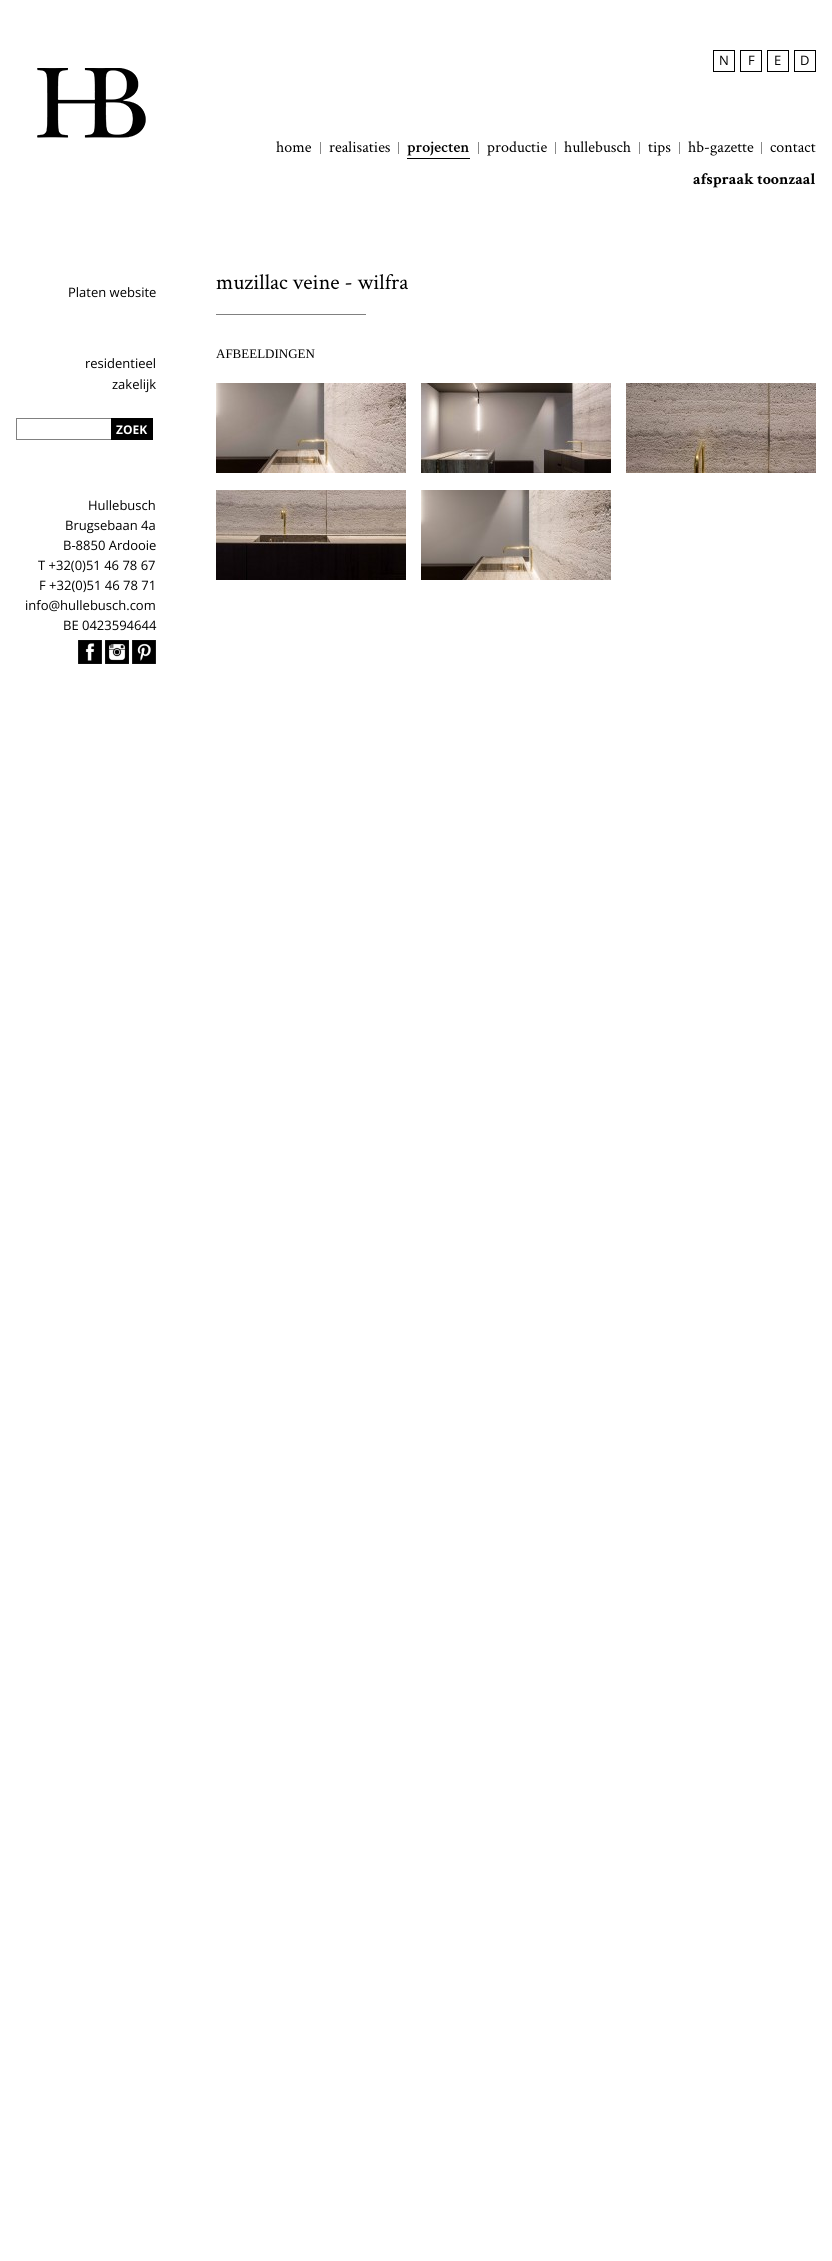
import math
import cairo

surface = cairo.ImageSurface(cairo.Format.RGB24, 832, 2261)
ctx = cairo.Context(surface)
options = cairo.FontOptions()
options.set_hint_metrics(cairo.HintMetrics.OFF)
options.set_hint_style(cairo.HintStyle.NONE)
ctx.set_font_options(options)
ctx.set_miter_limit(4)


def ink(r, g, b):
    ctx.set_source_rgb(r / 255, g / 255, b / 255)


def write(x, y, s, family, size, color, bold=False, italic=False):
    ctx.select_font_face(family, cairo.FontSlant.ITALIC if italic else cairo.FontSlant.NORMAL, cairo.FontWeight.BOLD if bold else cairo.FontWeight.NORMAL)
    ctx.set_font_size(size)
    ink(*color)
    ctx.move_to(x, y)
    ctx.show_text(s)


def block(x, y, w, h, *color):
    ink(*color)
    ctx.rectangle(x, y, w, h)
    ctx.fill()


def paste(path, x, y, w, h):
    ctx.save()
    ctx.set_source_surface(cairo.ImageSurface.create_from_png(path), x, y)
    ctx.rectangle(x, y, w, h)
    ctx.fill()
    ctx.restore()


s1 = dict(family="Open Sans", size=13, color=(0, 0, 0))
s2 = dict(family="Crimson Text", size=16, color=(0, 0, 0))
s3 = dict(family="Crimson Text SemiBold", size=16, color=(0, 0, 0))
s4 = dict(family="Crimson Text", size=16, color=(0, 0, 0), bold=True)
s5 = dict(family="Open Sans", size=12, color=(255, 255, 255), bold=True)
s6 = dict(family="Crimson Text", size=22, color=(0, 0, 0))
s7 = dict(family="Liberation Serif", size=13, color=(0, 0, 0))

ink(255, 255, 255)
ctx.paint()
paste("pic1.png", 37, 68, 109, 70)
ctx.rectangle(713.5, 50.5, 21, 21)
ink(0, 0, 0)
ctx.set_line_width(1)
ctx.stroke()
write(719, 65, "N", **s1)
ctx.rectangle(740.5, 50.5, 21, 21)
ctx.stroke()
write(748, 65, "F", **s1)
ctx.rectangle(767.5, 50.5, 21, 21)
ctx.stroke()
write(774, 65, "E", **s1)
ctx.rectangle(794.5, 50.5, 21, 21)
ctx.stroke()
write(800, 65, "D", **s1)
write(276, 152, "home", **s2)
block(320, 142, 1, 12, 137, 137, 137)
write(329, 152, "realisaties", **s2)
block(398, 142, 1, 12, 137, 137, 137)
write(407, 152, "projecten", **s3)
block(407, 158, 63, 1, 0, 0, 0)
block(478, 142, 1, 12, 137, 137, 137)
write(487, 152, "productie", **s2)
block(555, 142, 1, 12, 137, 137, 137)
write(564, 152, "hullebusch", **s2)
block(639, 142, 1, 12, 137, 137, 137)
write(648, 152, "tips", **s2)
block(679, 142, 1, 12, 137, 137, 137)
write(688, 152, "hb-gazette", **s2)
block(761, 142, 1, 12, 137, 137, 137)
write(770, 152, "contact", **s2)
write(693, 184, "afspraak toonzaal", **s4)
write(68, 297, "Platen website", **s1)
write(85, 368, "residentieel", **s1)
write(112, 389, "zakelijk", **s1)
block(16, 418, 95, 1, 128, 128, 128)
block(16, 439, 95, 1, 128, 128, 128)
block(16, 418, 1, 22, 128, 128, 128)
block(111, 418, 42, 22, 0, 0, 0)
write(116, 434, "ZOEK", **s5)
write(88, 510, "Hullebusch", **s1)
write(65, 530, "Brugsebaan 4a", **s1)
write(63, 550, "B-8850 Ardooie", **s1)
write(38, 570, "T +32(0)51 46 78 67", **s1)
write(39, 590, "F +32(0)51 46 78 71", **s1)
write(25, 610, "info@hullebusch.com", **s1)
write(63, 630, "BE 0423594644", **s1)
paste("pic2.png", 78, 640, 24, 24)
paste("pic3.png", 105, 640, 24, 24)
paste("pic4.png", 132, 640, 24, 24)
write(216, 289, "muzillac veine - wilfra", **s6)
block(216, 314, 150, 1, 128, 128, 128)
write(216, 358, "AFBEELDINGEN", **s7)
paste("pic5.png", 216, 383, 190, 90)
paste("pic6.png", 421, 383, 190, 90)
paste("pic7.png", 626, 383, 190, 90)
paste("pic8.png", 216, 490, 190, 90)
paste("pic9.png", 421, 490, 190, 90)
surface.write_to_png("screenshot.png")
